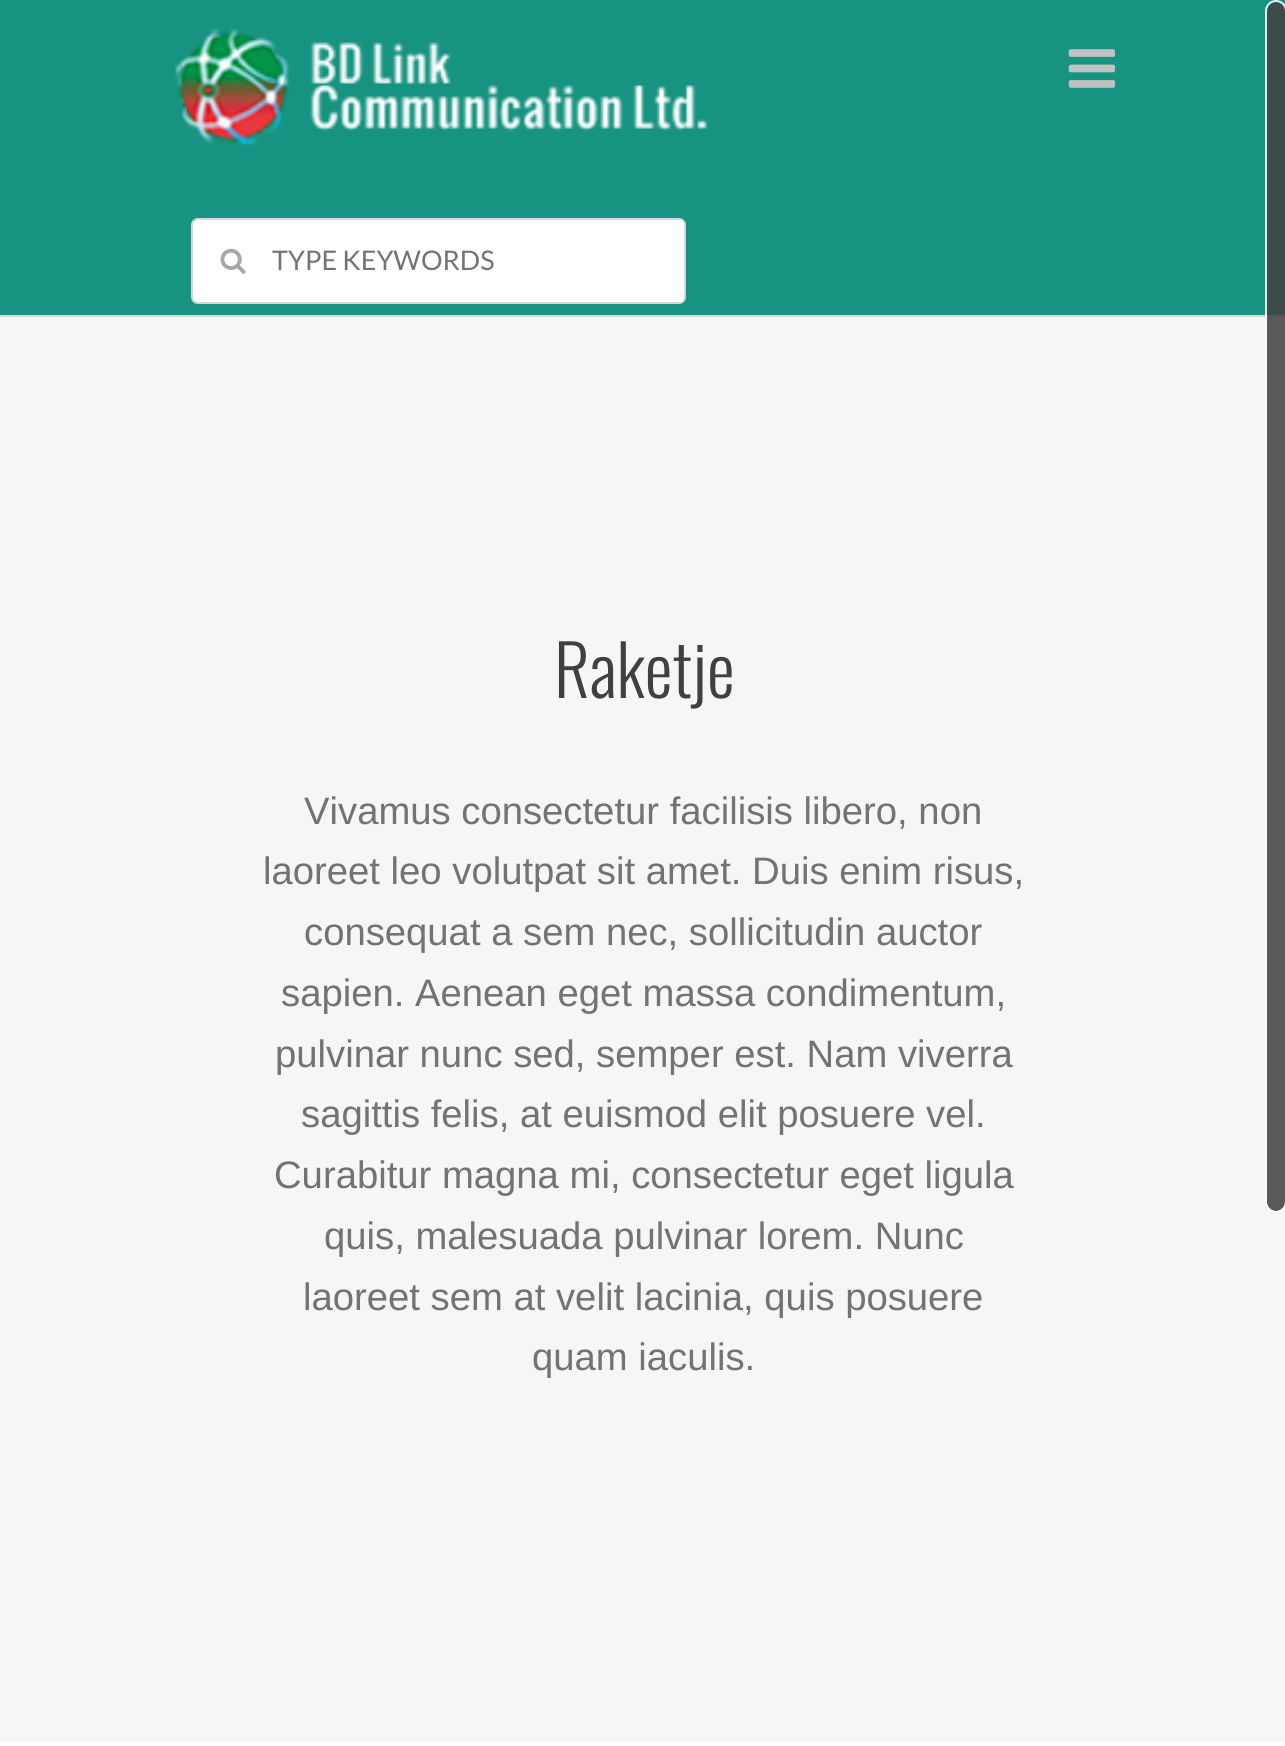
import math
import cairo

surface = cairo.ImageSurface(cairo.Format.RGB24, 1285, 1746)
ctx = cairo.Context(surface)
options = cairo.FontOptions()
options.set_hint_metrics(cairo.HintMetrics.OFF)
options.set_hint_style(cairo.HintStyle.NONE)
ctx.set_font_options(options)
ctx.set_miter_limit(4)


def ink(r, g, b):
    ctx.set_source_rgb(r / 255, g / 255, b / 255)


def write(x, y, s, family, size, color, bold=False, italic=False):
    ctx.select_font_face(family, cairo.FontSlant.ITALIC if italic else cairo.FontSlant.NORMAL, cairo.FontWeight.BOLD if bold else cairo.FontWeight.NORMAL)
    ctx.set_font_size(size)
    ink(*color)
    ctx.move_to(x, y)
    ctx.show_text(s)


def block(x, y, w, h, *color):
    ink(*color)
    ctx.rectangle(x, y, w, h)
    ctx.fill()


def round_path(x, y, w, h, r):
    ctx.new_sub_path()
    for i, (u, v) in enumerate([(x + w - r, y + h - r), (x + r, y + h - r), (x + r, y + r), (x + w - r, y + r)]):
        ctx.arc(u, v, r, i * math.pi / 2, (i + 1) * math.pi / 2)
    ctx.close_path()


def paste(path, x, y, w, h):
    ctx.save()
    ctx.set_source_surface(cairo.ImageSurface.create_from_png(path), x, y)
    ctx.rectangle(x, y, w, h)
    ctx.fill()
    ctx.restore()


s1 = dict(family="Lato", size=27, color=(115, 115, 115))
s2 = dict(family="Oswald Light", size=70, color=(64, 64, 64))
s3 = dict(family="Arimo", size=38.25, color=(115, 115, 115))

ink(255, 255, 255)
ctx.paint()
block(0, 0, 1285, 315, 23, 147, 129)
block(0, 315, 1285, 2, 215, 215, 215)
paste("pic1.png", 175, 28, 533, 117)
paste("pic2.png", 1068, 49, 48, 39)
ink(255, 255, 255)
round_path(192, 219, 493, 84, 6)
ctx.fill_preserve()
ink(215, 215, 215)
ctx.stroke()
paste("pic3.png", 220, 248, 26, 26)
write(272, 270, "TYPE KEYWORDS", **s1)
block(0, 317, 1285, 1425, 246, 246, 246)
write(554, 698, "Raketje", **s2)
write(304, 824, "Vivamus consectetur facilisis libero, non", **s3)
write(263, 884, "laoreet leo volutpat sit amet. Duis enim risus,", **s3)
write(304, 945, "consequat a sem nec, sollicitudin auctor", **s3)
write(281, 1006, "sapien. Aenean eget massa condimentum,", **s3)
write(275, 1067, "pulvinar nunc sed, semper est. Nam viverra", **s3)
write(301, 1127, "sagittis felis, at euismod elit posuere vel.", **s3)
write(274, 1188, "Curabitur magna mi, consectetur eget ligula", **s3)
write(324, 1249, "quis, malesuada pulvinar lorem. Nunc", **s3)
write(303, 1310, "laoreet sem at velit lacinia, quis posuere", **s3)
write(532, 1370, "quam iaculis.", **s3)
ctx.set_source_rgba(0.259, 0.259, 0.259, 0.87)
round_path(1267, 2, 18, 1209, 9)
ctx.fill()
round_path(1266, 1, 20, 1211, 10)
ctx.set_source_rgba(1, 1, 1, 0.87)
ctx.stroke()
surface.write_to_png("screenshot.png")
